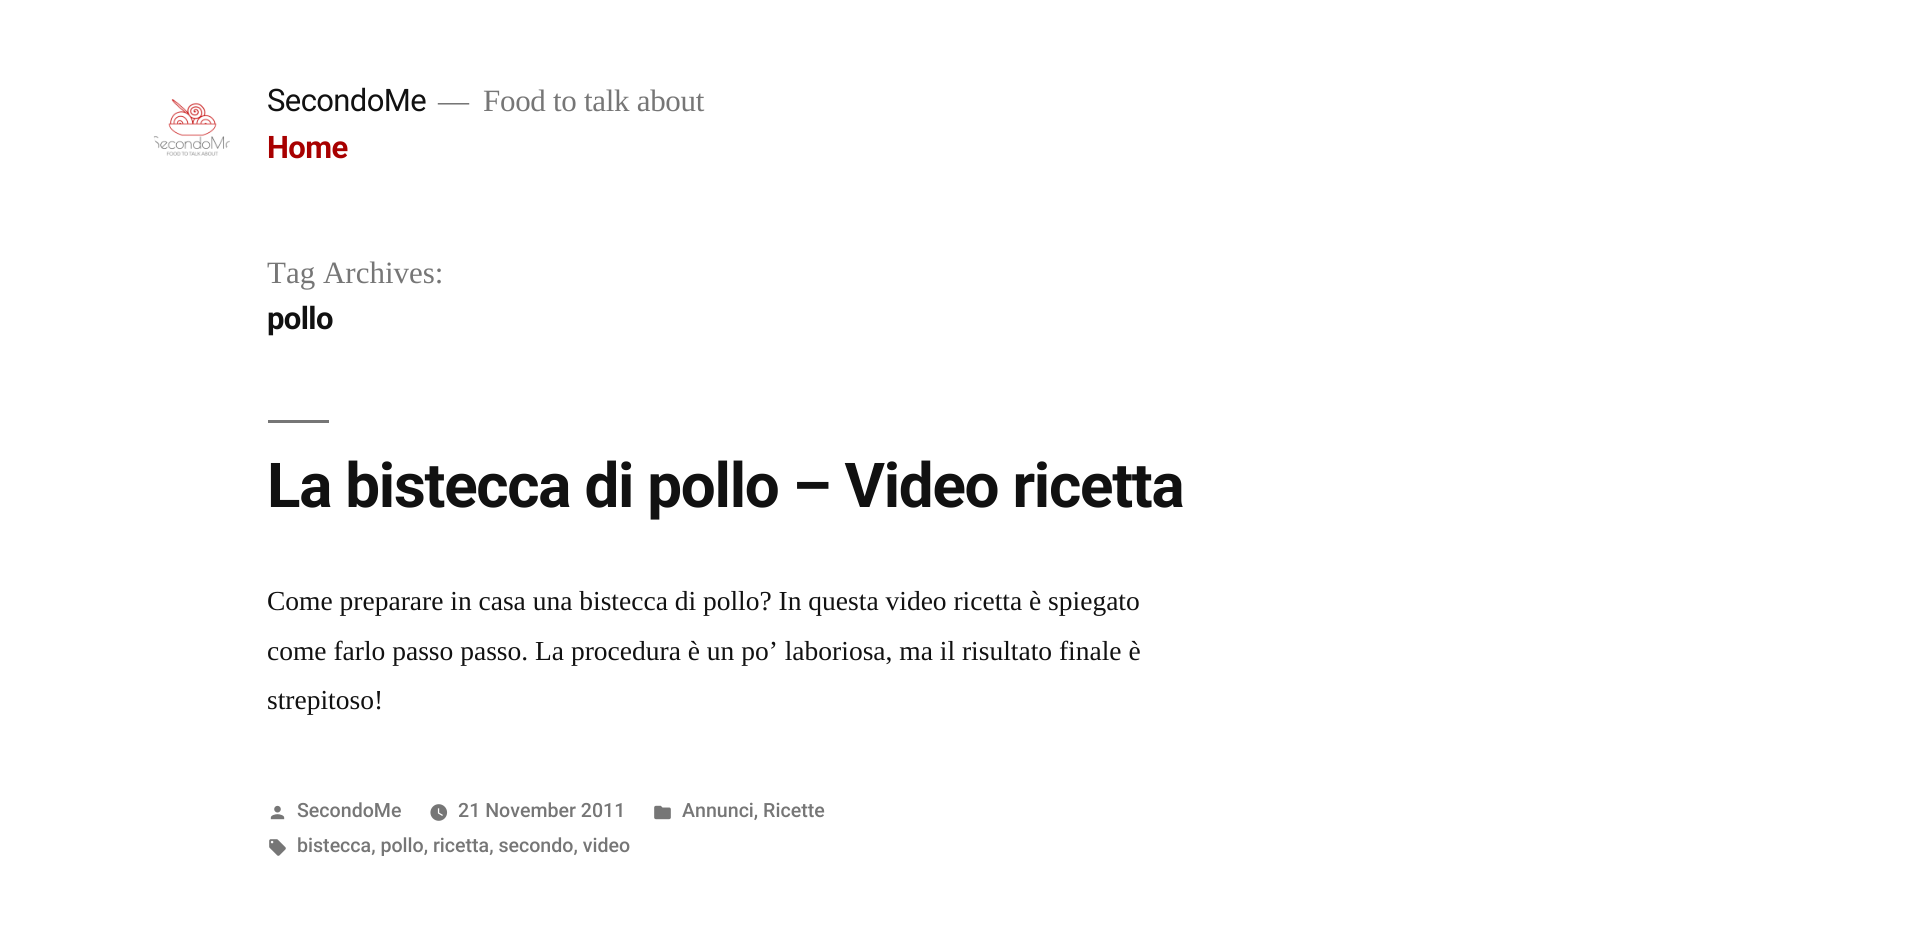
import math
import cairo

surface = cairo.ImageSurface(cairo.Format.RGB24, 1918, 939)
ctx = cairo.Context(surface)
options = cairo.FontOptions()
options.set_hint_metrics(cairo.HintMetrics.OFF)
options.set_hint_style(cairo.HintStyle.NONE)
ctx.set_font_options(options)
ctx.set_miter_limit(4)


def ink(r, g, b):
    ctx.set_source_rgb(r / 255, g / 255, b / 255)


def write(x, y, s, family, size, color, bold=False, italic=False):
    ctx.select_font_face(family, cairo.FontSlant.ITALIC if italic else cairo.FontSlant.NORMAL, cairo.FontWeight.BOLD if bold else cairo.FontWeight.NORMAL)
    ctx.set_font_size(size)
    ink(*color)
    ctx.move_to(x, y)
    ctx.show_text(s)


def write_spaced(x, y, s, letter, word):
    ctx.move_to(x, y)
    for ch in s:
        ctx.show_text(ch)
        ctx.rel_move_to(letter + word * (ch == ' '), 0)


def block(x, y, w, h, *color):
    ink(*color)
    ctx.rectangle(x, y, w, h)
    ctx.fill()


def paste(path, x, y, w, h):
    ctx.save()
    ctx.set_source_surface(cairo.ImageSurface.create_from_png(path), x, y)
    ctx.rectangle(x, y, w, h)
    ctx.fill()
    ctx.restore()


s1 = dict(family="Liberation Serif", size=31, color=(118, 118, 118))
s2 = dict(family="Liberation Serif", size=27.5, color=(17, 17, 17))
s3 = dict(family="Roboto Medium", size=19.6, color=(118, 118, 118))

ink(255, 255, 255)
ctx.paint()
paste("pic1.png", 153, 99, 77, 57)
ctx.select_font_face("Roboto")
ctx.set_font_size(31)
ink(17, 17, 17)
write_spaced(267, 111, "SecondoMe", -0.6, 0)
ctx.select_font_face("Liberation Serif")
ink(118, 118, 118)
write_spaced(438, 111, "—", -0.3, 0)
write_spaced(483, 111, "Food to talk about", -0.3, 0)
ctx.select_font_face("Roboto", cairo.FontSlant.NORMAL, cairo.FontWeight.BOLD)
ink(168, 0, 0)
write_spaced(267, 158, "Home", -0.6, 0)
write(267, 283, "Tag Archives:", **s1)
ctx.select_font_face("Roboto", cairo.FontSlant.NORMAL, cairo.FontWeight.BOLD)
ink(17, 17, 17)
write_spaced(267, 329, "pollo", -0.6, 0)
block(268, 420, 61, 3, 118, 118, 118)
ctx.set_font_size(61.9)
ink(17, 17, 17)
write_spaced(267, 507, "La bistecca di pollo – Video ricetta", -1.25, 0)
write(267, 610, "Come preparare in casa una bistecca di pollo? In questa video ricetta è spiegato", **s2)
write(267, 660, "come farlo passo passo. La procedura è un po’ laboriosa, ma il risultato finale è", **s2)
write(267, 709, "strepitoso!", **s2)
paste("pic2.png", 270, 805, 15, 15)
write(297, 817, "SecondoMe", **s3)
paste("pic3.png", 430, 804, 18, 17)
write(458, 817, "21 November 2011", **s3)
paste("pic4.png", 654, 805, 17, 15)
write(682, 817, "Annunci, Ricette", **s3)
paste("pic5.png", 269, 839, 17, 17)
write(297, 852, "bistecca, pollo, ricetta, secondo, video", **s3)
surface.write_to_png("screenshot.png")
